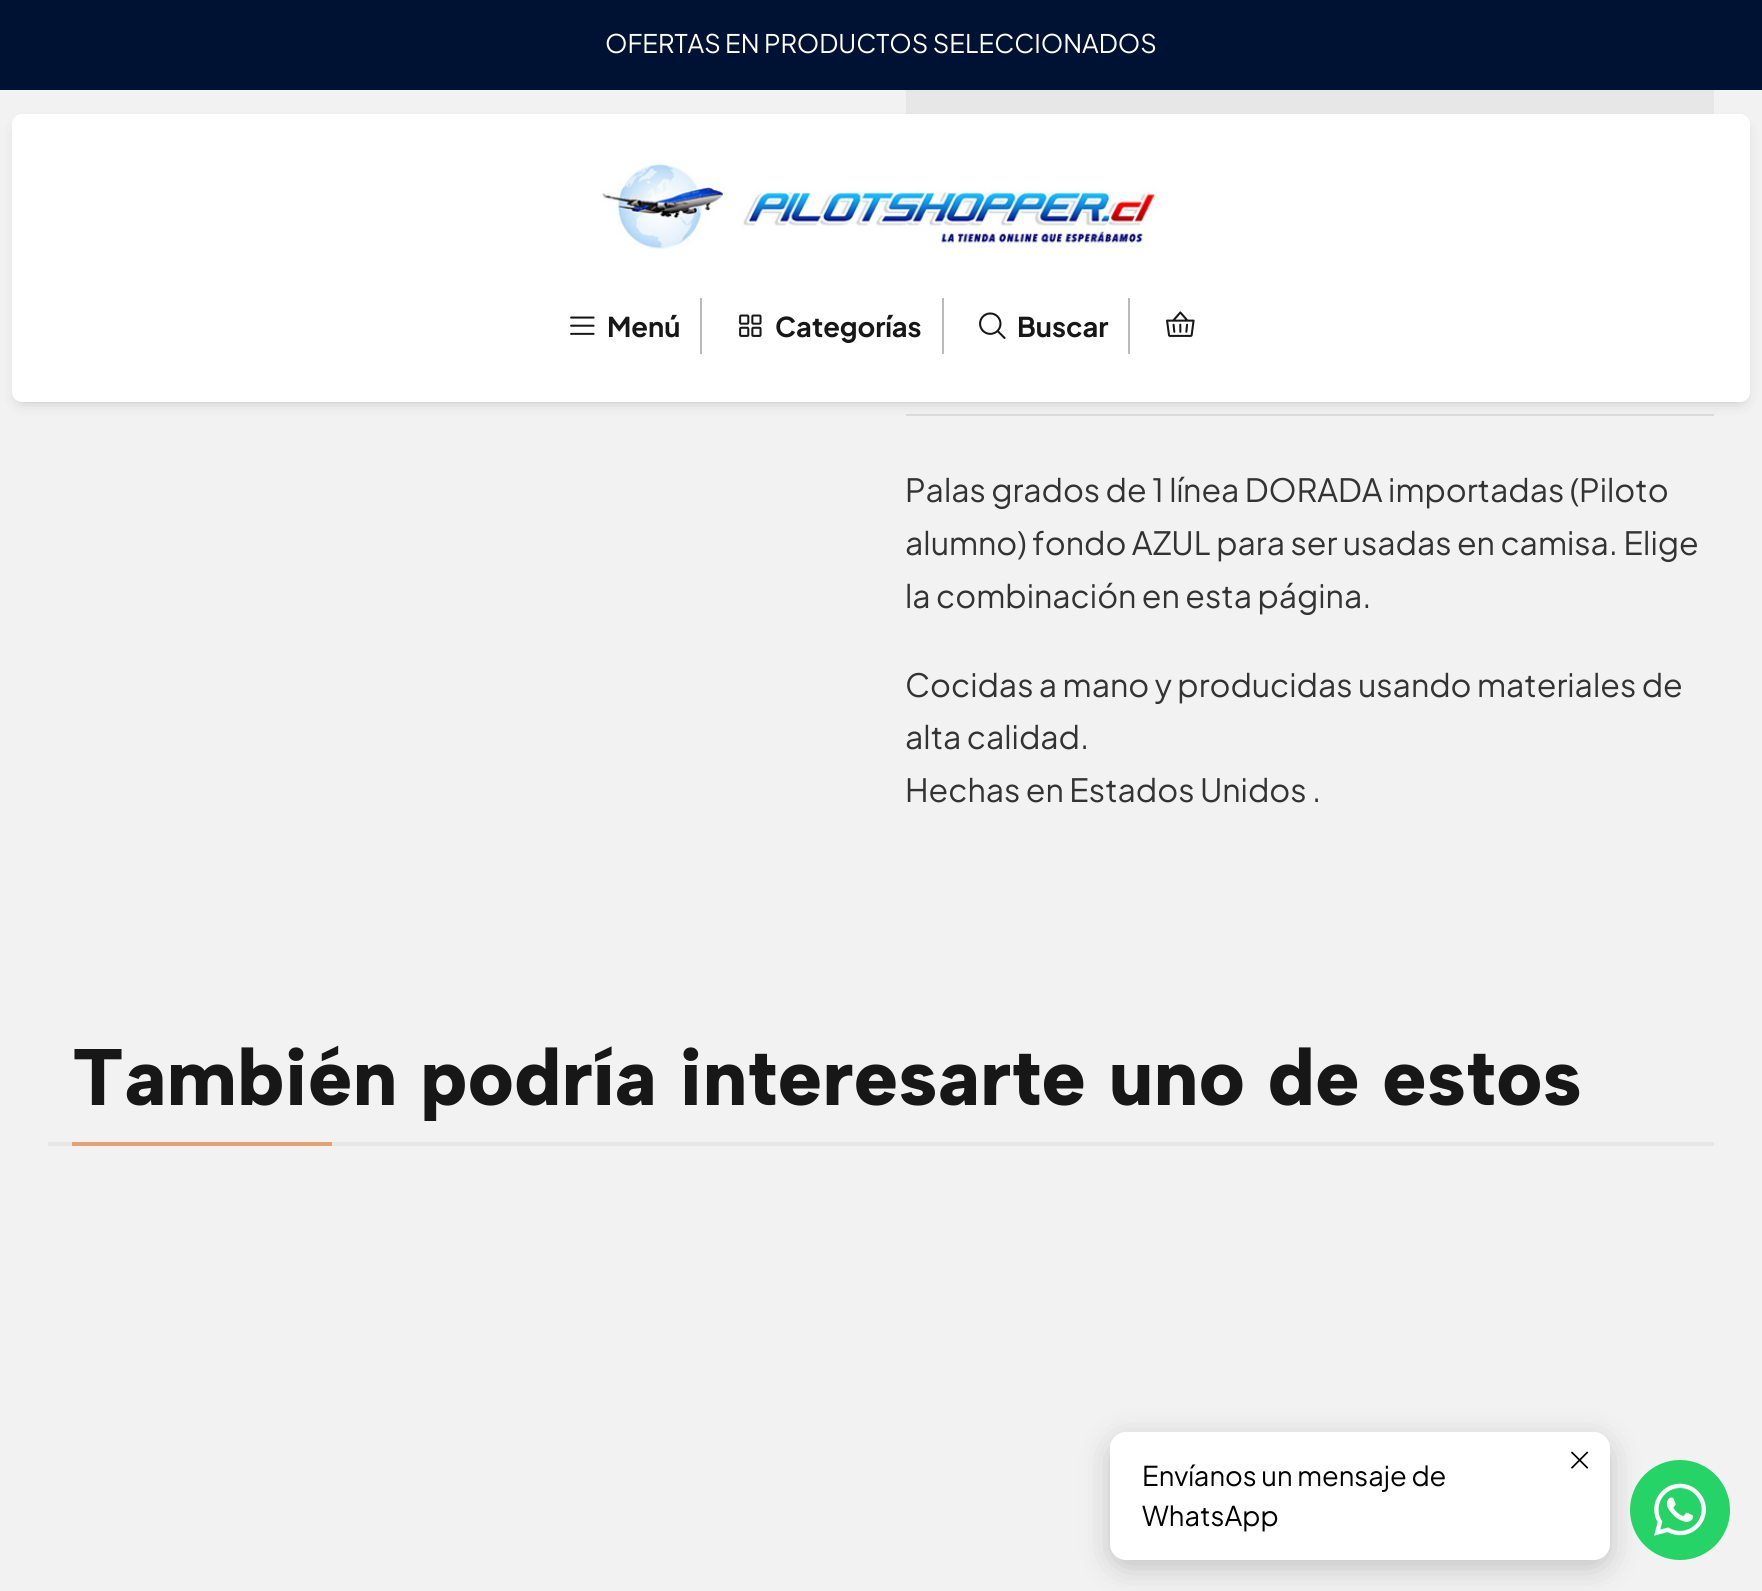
import math
import cairo

surface = cairo.ImageSurface(cairo.Format.RGB24, 1762, 1591)
ctx = cairo.Context(surface)
options = cairo.FontOptions()
options.set_hint_metrics(cairo.HintMetrics.OFF)
options.set_hint_style(cairo.HintStyle.NONE)
ctx.set_font_options(options)
ctx.set_miter_limit(4)


def ink(r, g, b):
    ctx.set_source_rgb(r / 255, g / 255, b / 255)


def write(x, y, s, family, size, color, bold=False, italic=False):
    ctx.select_font_face(family, cairo.FontSlant.ITALIC if italic else cairo.FontSlant.NORMAL, cairo.FontWeight.BOLD if bold else cairo.FontWeight.NORMAL)
    ctx.set_font_size(size)
    ink(*color)
    ctx.move_to(x, y)
    ctx.show_text(s)


def block(x, y, w, h, *color):
    ink(*color)
    ctx.rectangle(x, y, w, h)
    ctx.fill()


def round_path(x, y, w, h, r):
    ctx.new_sub_path()
    for i, (u, v) in enumerate([(x + w - r, y + h - r), (x + r, y + h - r), (x + r, y + r), (x + w - r, y + r)]):
        ctx.arc(u, v, r, i * math.pi / 2, (i + 1) * math.pi / 2)
    ctx.close_path()


def blur_box(x, y, w, h, r, blur, alpha):
    ctx.push_group_with_content(cairo.Content.ALPHA)
    ctx.set_operator(cairo.Operator.SOURCE)
    for i in range(15, -16, -2):
        e = blur * i / 6
        if min(w, h) + 2 * e > 0:
            ctx.set_source_rgba(0, 0, 0, alpha * math.erfc((i - 1) / 8.5) / 2)
            round_path(x - e, y - e, w + 2 * e, h + 2 * e, max(0, min(r + e + blur * .6, min(w, h) / 2 + e)))
            ctx.fill()
    ctx.mask(ctx.pop_group())


def paste(path, x, y, w, h):
    ctx.save()
    ctx.set_source_surface(cairo.ImageSurface.create_from_png(path), x, y)
    ctx.rectangle(x, y, w, h)
    ctx.fill()
    ctx.restore()


s1 = dict(family="Plus Jakarta Sans", size=25.6, color=(255, 255, 255))
s2 = dict(family="Plus Jakarta Sans", size=27.25, color=(23, 23, 23), bold=True)
s3 = dict(family="Plus Jakarta Sans", size=32, color=(51, 51, 51))
s4 = dict(family="Albert Sans ExtraBold", size=80, color=(23, 23, 23))
s5 = dict(family="Plus Jakarta Sans", size=27.25, color=(0, 0, 0))

ink(242, 242, 242)
ctx.paint()
block(48, 1142, 1666, 4, 231, 231, 231)
block(0, 0, 1762, 90, 0, 18, 51)
write(605, 53, "OFERTAS EN PRODUCTOS SELECCIONADOS", **s1)
block(906, 90, 808, 24, 231, 231, 231)
block(906, 414, 808, 2, 220, 220, 220)
ink(0, 0, 0)
blur_box(20, 128, 1722, 272, 2, 8, 0.25)
ink(255, 255, 255)
round_path(12, 114, 1738, 288, 10)
ctx.fill()
paste("pic1.png", 602, 162, 555, 87)
paste("pic2.png", 570, 316, 25, 19)
write(607, 337, "Menú", **s2)
block(700, 298, 2, 56, 185, 185, 185)
paste("pic3.png", 739, 314, 23, 23)
write(775, 337, "Categorías", **s2)
block(942, 298, 2, 56, 185, 185, 185)
paste("pic4.png", 979, 312, 27, 27)
write(1017, 337, "Buscar", **s2)
block(1128, 298, 2, 56, 185, 185, 185)
paste("pic5.png", 1166, 311, 29, 26)
write(905, 502, "Palas grados de 1 línea DORADA importadas (Piloto", **s3)
write(905, 555, "alumno) fondo AZUL para ser usadas en camisa. Elige", **s3)
write(905, 608, "la combinación en esta página.", **s3)
write(905, 697, "Cocidas a mano y producidas usando materiales de", **s3)
write(905, 749, "alta calidad.", **s3)
write(905, 802, "Hechas en Estados Unidos .", **s3)
write(72, 1105, "También podría interesarte uno de estos", **s4)
block(72, 1142, 260, 4, 229, 161, 112)
ink(0, 0, 0)
blur_box(1110, 1440, 500, 128, 16, 15, 0.2)
ink(255, 255, 255)
round_path(1110, 1432, 500, 128, 16)
ctx.fill()
paste("pic6.png", 1571, 1451, 18, 18)
write(1142, 1486, "Envíanos un mensaje de", **s5)
write(1142, 1526, "WhatsApp", **s5)
ink(37, 211, 102)
ctx.new_path()
ctx.arc(1680, 1510, 50, 0, 2 * math.pi)
ctx.fill()
paste("pic7.png", 1654, 1483, 52, 53)
surface.write_to_png("screenshot.png")
